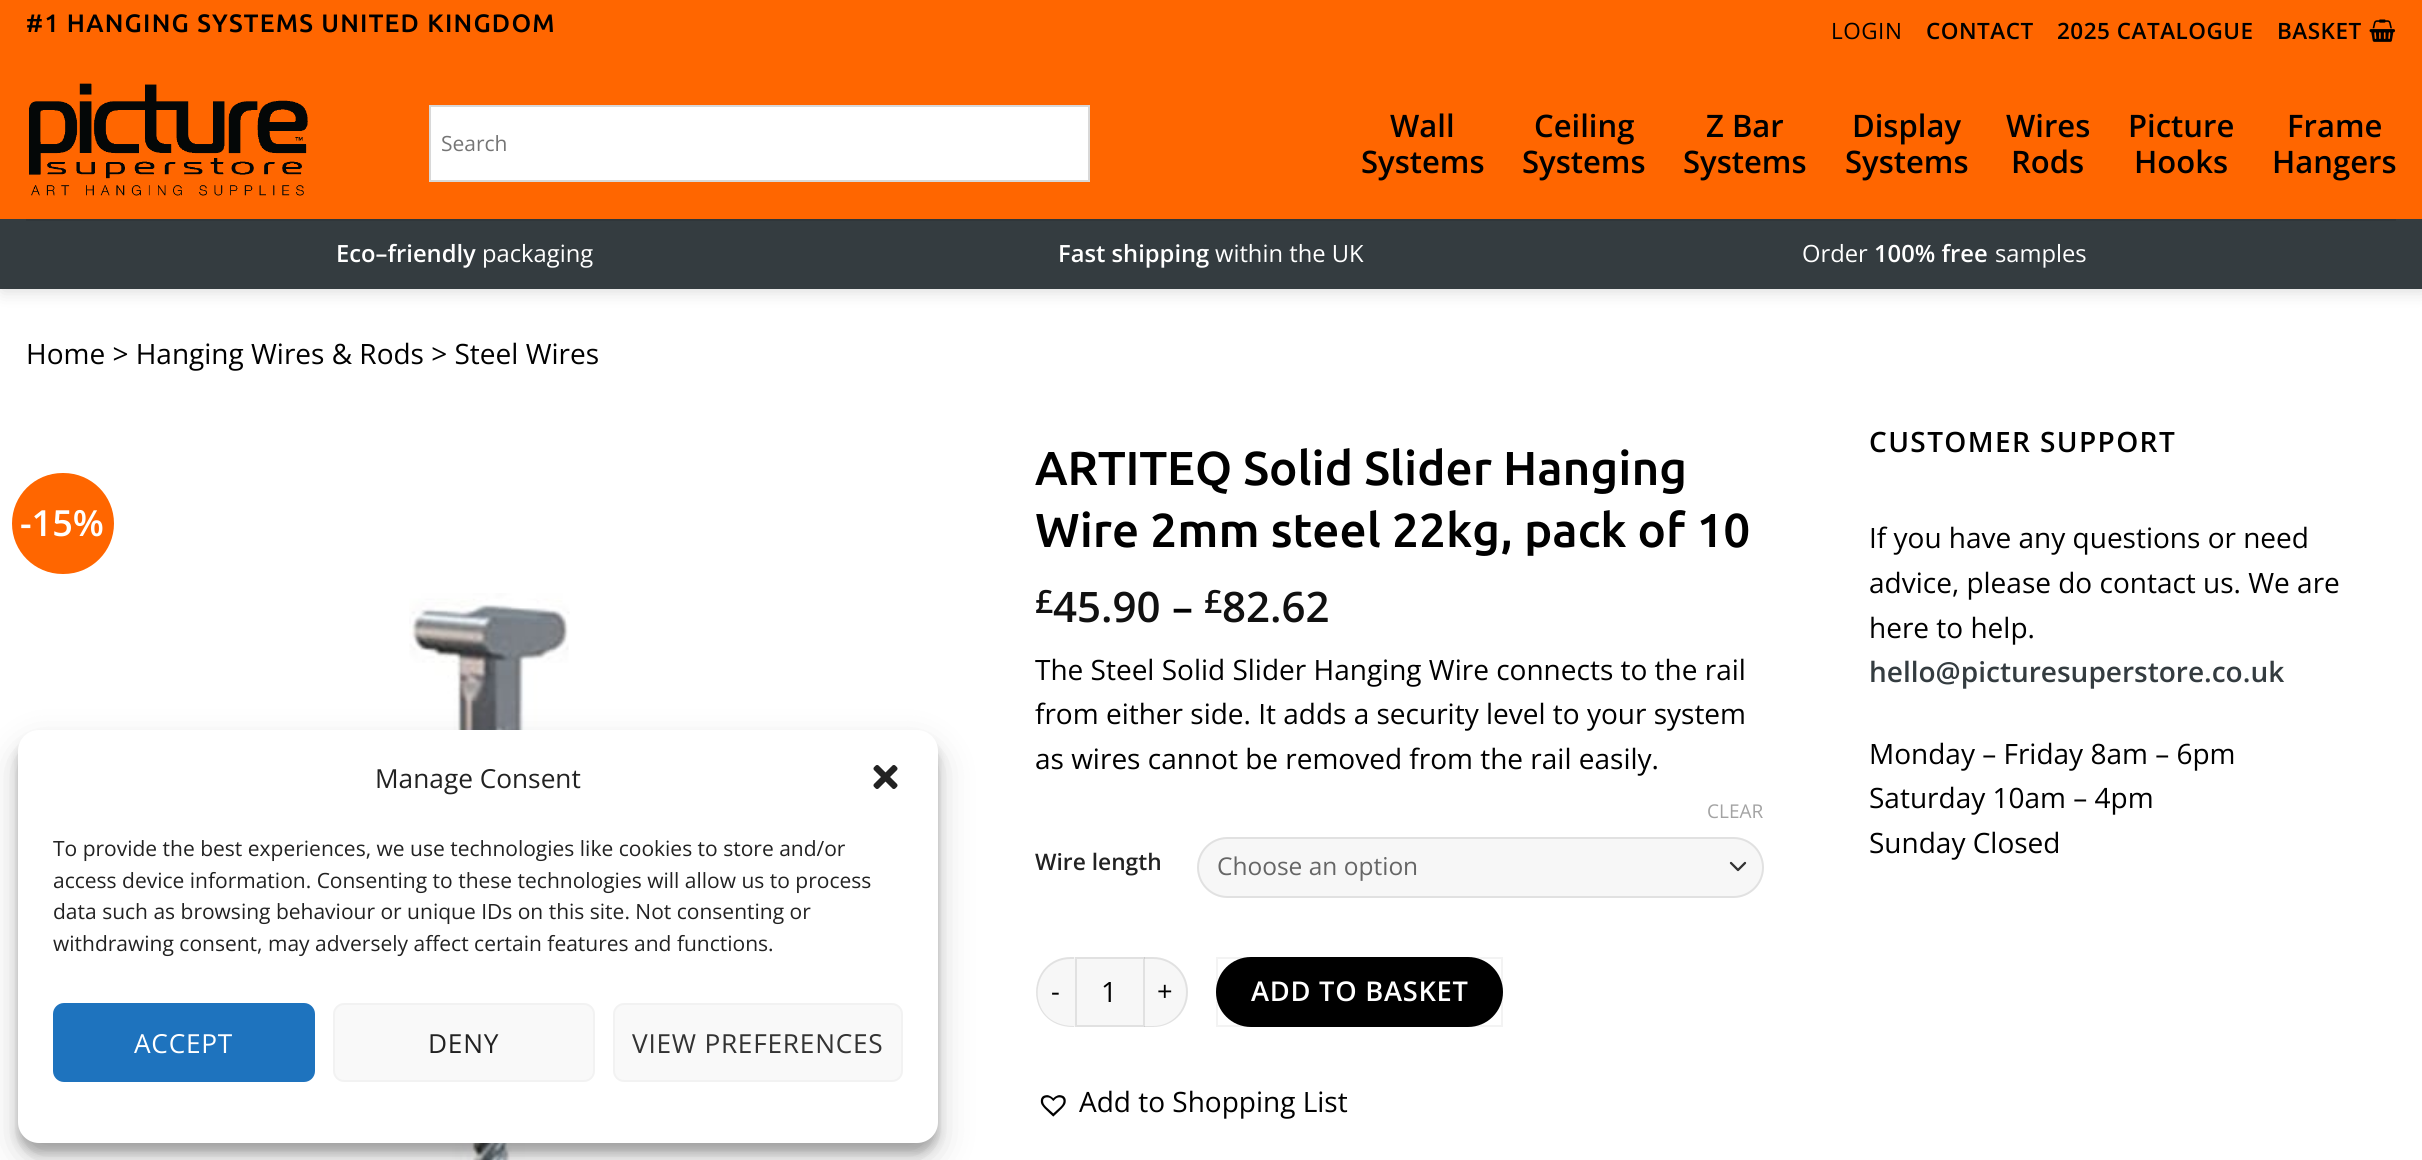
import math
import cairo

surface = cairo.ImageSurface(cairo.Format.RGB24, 2422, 1160)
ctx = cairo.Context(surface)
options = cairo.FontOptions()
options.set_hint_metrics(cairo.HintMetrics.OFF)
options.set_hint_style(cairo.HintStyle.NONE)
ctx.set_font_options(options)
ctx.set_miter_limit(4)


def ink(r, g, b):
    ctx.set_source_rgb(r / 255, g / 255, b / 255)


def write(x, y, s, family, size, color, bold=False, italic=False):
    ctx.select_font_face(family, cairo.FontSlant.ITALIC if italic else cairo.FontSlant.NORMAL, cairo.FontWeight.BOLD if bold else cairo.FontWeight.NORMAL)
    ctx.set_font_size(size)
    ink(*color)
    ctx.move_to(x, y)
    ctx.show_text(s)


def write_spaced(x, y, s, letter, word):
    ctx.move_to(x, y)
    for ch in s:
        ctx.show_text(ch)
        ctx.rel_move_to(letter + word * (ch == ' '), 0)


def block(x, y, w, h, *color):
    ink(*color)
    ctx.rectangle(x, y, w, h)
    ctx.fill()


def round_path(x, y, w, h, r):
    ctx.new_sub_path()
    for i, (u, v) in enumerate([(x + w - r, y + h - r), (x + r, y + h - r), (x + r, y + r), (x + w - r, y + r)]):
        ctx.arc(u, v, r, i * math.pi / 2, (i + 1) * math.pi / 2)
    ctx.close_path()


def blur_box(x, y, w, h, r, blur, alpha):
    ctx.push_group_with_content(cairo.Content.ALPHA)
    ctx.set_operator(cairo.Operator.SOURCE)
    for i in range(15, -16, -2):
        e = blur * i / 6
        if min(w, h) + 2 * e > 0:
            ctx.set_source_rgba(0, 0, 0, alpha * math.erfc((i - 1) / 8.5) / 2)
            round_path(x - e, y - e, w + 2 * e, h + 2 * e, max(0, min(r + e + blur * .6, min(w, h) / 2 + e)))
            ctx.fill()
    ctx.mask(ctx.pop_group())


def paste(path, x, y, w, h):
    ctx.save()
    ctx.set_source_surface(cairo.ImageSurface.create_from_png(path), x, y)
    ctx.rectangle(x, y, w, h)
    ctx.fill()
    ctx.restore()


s1 = dict(family="Open Sans", size=21, color=(117, 117, 117))
s2 = dict(family="Open Sans SemiBold", size=31, color=(0, 0, 0))
s3 = dict(family="Open Sans SemiBold", size=23.75, color=(255, 255, 255))
s4 = dict(family="Open Sans", size=23.75, color=(255, 255, 255))
s5 = dict(family="Open Sans", size=28, color=(0, 0, 0))
s6 = dict(family="Open Sans SemiBold", size=36, color=(255, 255, 255))
s7 = dict(family="Ubuntu Medium", size=47.6, color=(0, 0, 0))
s8 = dict(family="Open Sans SemiBold", size=32, color=(17, 17, 17))
s9 = dict(family="Open Sans SemiBold", size=42, color=(17, 17, 17))
s10 = dict(family="Open Sans SemiBold", size=42, color=(0, 0, 0))
s11 = dict(family="Open Sans SemiBold", size=22.75, color=(34, 34, 34))
s12 = dict(family="Open Sans", size=19, color=(163, 163, 163))
s13 = dict(family="Open Sans", size=24.5, color=(102, 102, 102))
s14 = dict(family="Open Sans SemiBold", size=28, color=(52, 60, 64))
s15 = dict(family="Open Sans", size=26.25, color=(34, 34, 34))
s16 = dict(family="Open Sans", size=21, color=(34, 34, 34))

ink(255, 255, 255)
ctx.paint()
ink(0, 0, 0)
blur_box(2, 2, 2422, 289, 0, 9, 0.15)
block(0, 0, 2422, 219, 255, 102, 0)
ctx.select_font_face("Ubuntu Medium")
ctx.set_font_size(25.2)
ink(0, 0, 0)
write_spaced(26, 32, "#1 HANGING SYSTEMS UNITED KINGDOM", 1.25, 0)
ctx.select_font_face("Open Sans")
ctx.set_font_size(22.5)
write_spaced(1831, 39, "LOGIN", 0.5, 0)
ctx.select_font_face("Open Sans SemiBold")
write_spaced(1926, 39, "CONTACT", 0.5, 0)
write_spaced(2057, 39, "2025 CATALOGUE", 0.5, 0)
write_spaced(2277, 39, "BASKET", 0.5, 0)
paste("pic1.png", 2369, 19, 27, 23)
paste("pic2.png", 29, 83, 279, 113)
ink(255, 255, 255)
ctx.rectangle(430, 106, 659, 75)
ctx.fill_preserve()
ink(216, 216, 216)
ctx.stroke()
write(441, 151, "Search", **s1)
write(1390, 137, "Wall", **s2)
write(1361, 173, "Systems", **s2)
write(1534, 137, "Ceiling", **s2)
write(1522, 173, "Systems", **s2)
write(1706, 137, "Z Bar", **s2)
write(1683, 173, "Systems", **s2)
write(1852, 137, "Display", **s2)
write(1845, 173, "Systems", **s2)
write(2006, 137, "Wires", **s2)
write(2011, 173, "Rods", **s2)
write(2128, 137, "Picture", **s2)
write(2134, 173, "Hooks", **s2)
write(2287, 137, "Frame", **s2)
write(2272, 173, "Hangers", **s2)
block(0, 219, 2422, 70, 52, 60, 64)
block(26, 219, 2370, 2, 47, 54, 58)
write(336, 262, "Eco–friendly", **s3)
write(482, 262, "packaging", **s4)
write(1058, 262, "Fast shipping", **s3)
write(1215, 262, "within the UK", **s4)
write(1802, 262, "Order", **s4)
write(1874, 262, "100% free", **s3)
write(1995, 262, "samples", **s4)
write(26, 364, "Home > Hanging Wires & Rods > Steel Wires", **s5)
ink(255, 102, 0)
round_path(12, 473, 102, 101, 50.5)
ctx.fill()
write(20, 536, "-15%", **s6)
paste("pic3.png", 409, 593, 161, 567)
write(1035, 485, "ARTITEQ Solid Slider Hanging", **s7)
write(1035, 547, "Wire 2mm steel 22kg, pack of 10", **s7)
write(1035, 613, "£", **s8)
write(1053, 622, "45.90", **s9)
write(1172, 622, "–", **s10)
write(1204, 613, "£", **s8)
write(1222, 622, "82.62", **s9)
write(1035, 680, "The Steel Solid Slider Hanging Wire connects to the rail", **s5)
write(1035, 724, "from either side. It adds a security level to your system", **s5)
write(1035, 769, "as wires cannot be removed from the rail easily.", **s5)
write(1035, 870, "Wire length", **s11)
write(1707, 818, "CLEAR", **s12)
ink(247, 247, 247)
round_path(1197, 837, 567, 61, 30.5)
ctx.fill()
ctx.new_path()
ctx.move_to(1731, 863)
ctx.line_to(1738, 870)
ctx.line_to(1745, 863)
ink(51, 51, 51)
ctx.set_line_width(2.3)
ctx.set_line_cap(cairo.LineCap.ROUND)
ctx.set_line_join(cairo.LineJoin.ROUND)
ctx.stroke()
round_path(1198, 838, 565, 59, 29.5)
ctx.set_source_rgba(0, 0, 0, 0.09)
ctx.set_line_width(2)
ctx.set_line_cap(cairo.LineCap.BUTT)
ctx.set_line_join(cairo.LineJoin.MITER)
ctx.stroke()
write(1217, 875, "Choose an option", **s13)
ink(247, 247, 247)
ctx.new_path()
ctx.move_to(1071, 957)
ctx.line_to(1075, 957)
ctx.line_to(1075, 1027)
ctx.line_to(1071, 1027)
ctx.curve_to(1051.5, 1027, 1036, 1011.5, 1036, 992)
ctx.curve_to(1036, 972.5, 1051.5, 957, 1071, 957)
ctx.close_path()
ctx.fill()
ctx.set_source_rgba(0, 0, 0, 0.09)
ctx.set_fill_rule(cairo.FillRule.EVEN_ODD)
ctx.new_path()
ctx.move_to(1071, 957)
ctx.line_to(1074, 957)
ctx.line_to(1074, 1027)
ctx.curve_to(1022, 1027, 1026, 957, 1071, 957)
ctx.close_path()
ctx.move_to(1071, 959)
ctx.line_to(1074, 959)
ctx.line_to(1074, 1026)
ctx.curve_to(1024, 1026, 1028, 959, 1071, 959)
ctx.close_path()
ctx.fill()
ctx.set_font_size(27.25)
ink(0, 0, 0)
write_spaced(1051, 1001, "-", 0.75, 0)
ink(247, 247, 247)
ctx.rectangle(1076, 958, 68, 68)
ctx.fill_preserve()
ink(225, 225, 225)
ctx.stroke()
write(1101, 1002, "1", **s5)
ink(247, 247, 247)
ctx.new_path()
ctx.move_to(1145, 957)
ctx.line_to(1153, 957)
ctx.curve_to(1172.5, 957, 1188, 972.5, 1188, 992)
ctx.curve_to(1188, 1011.5, 1172.5, 1027, 1153, 1027)
ctx.line_to(1145, 1027)
ctx.close_path()
ctx.fill()
ctx.set_source_rgba(0, 0, 0, 0.09)
ctx.new_path()
ctx.move_to(1144, 957)
ctx.line_to(1153, 957)
ctx.curve_to(1173, 957, 1188, 973, 1188, 992)
ctx.curve_to(1188, 1012, 1173, 1027, 1153, 1027)
ctx.line_to(1144, 1027)
ctx.close_path()
ctx.move_to(1144, 959)
ctx.line_to(1153, 959)
ctx.curve_to(1172, 959, 1186, 974, 1186, 992)
ctx.curve_to(1186, 1011, 1172, 1026, 1153, 1026)
ctx.line_to(1144, 1026)
ctx.close_path()
ctx.fill()
ctx.set_font_size(27.25)
ink(0, 0, 0)
write_spaced(1157, 1001, "+", 0.75, 0)
round_path(1216, 957, 287, 70, 35)
ctx.fill()
ctx.rectangle(1217, 958, 285, 68)
ctx.set_source_rgba(0, 0, 0, 0.05)
ctx.stroke()
ctx.select_font_face("Open Sans SemiBold")
ink(255, 255, 255)
write_spaced(1251, 1001, "ADD TO BASKET", 0.75, 0)
paste("pic4.png", 1040, 1095, 26, 22)
write(1079, 1112, "Add to Shopping List", **s5)
ctx.select_font_face("Open Sans SemiBold")
write_spaced(1869, 452, "CUSTOMER SUPPORT", 1.4, 0)
write(1869, 548, "If you have any questions or need", **s5)
write(1869, 593, "advice, please do contact us. We are", **s5)
write(1869, 638, "here to help.", **s5)
write(1869, 682, "hello@picturesuperstore.co.uk", **s14)
write(1869, 764, "Monday – Friday 8am – 6pm", **s5)
write(1869, 808, "Saturday 10am – 4pm", **s5)
write(1869, 853, "Sunday Closed", **s5)
ink(0, 0, 0)
blur_box(18, 740, 920, 413, 21, 5, 0.23)
blur_box(18, 747, 920, 413, 21, 17.5, 0.19)
ink(255, 255, 255)
round_path(18, 730, 920, 413, 21)
ctx.fill()
write(375, 788, "Manage Consent", **s15)
paste("pic5.png", 873, 765, 25, 24)
write(53, 856, "To provide the best experiences, we use technologies like cookies to store and/or", **s16)
write(53, 888, "access device information. Consenting to these technologies will allow us to process", **s16)
write(53, 919, "data such as browsing behaviour or unique IDs on this site. Not consenting or", **s16)
write(53, 951, "withdrawing consent, may adversely affect certain features and functions.", **s16)
ink(30, 115, 190)
round_path(54, 1004, 260, 77, 10)
ctx.fill_preserve()
ctx.stroke()
ctx.set_font_size(26.25)
ink(255, 255, 255)
write_spaced(134, 1053, "ACCEPT", 0.75, 0)
ink(249, 249, 249)
round_path(334, 1004, 260, 77, 10)
ctx.fill_preserve()
ink(242, 242, 242)
ctx.stroke()
ink(34, 34, 34)
write_spaced(428, 1053, "DENY", 0.75, 0)
ink(249, 249, 249)
round_path(614, 1004, 288, 77, 10)
ctx.fill_preserve()
ink(242, 242, 242)
ctx.stroke()
ink(51, 51, 51)
write_spaced(632, 1053, "VIEW PREFERENCES", 0.75, 0)
surface.write_to_png("screenshot.png")
